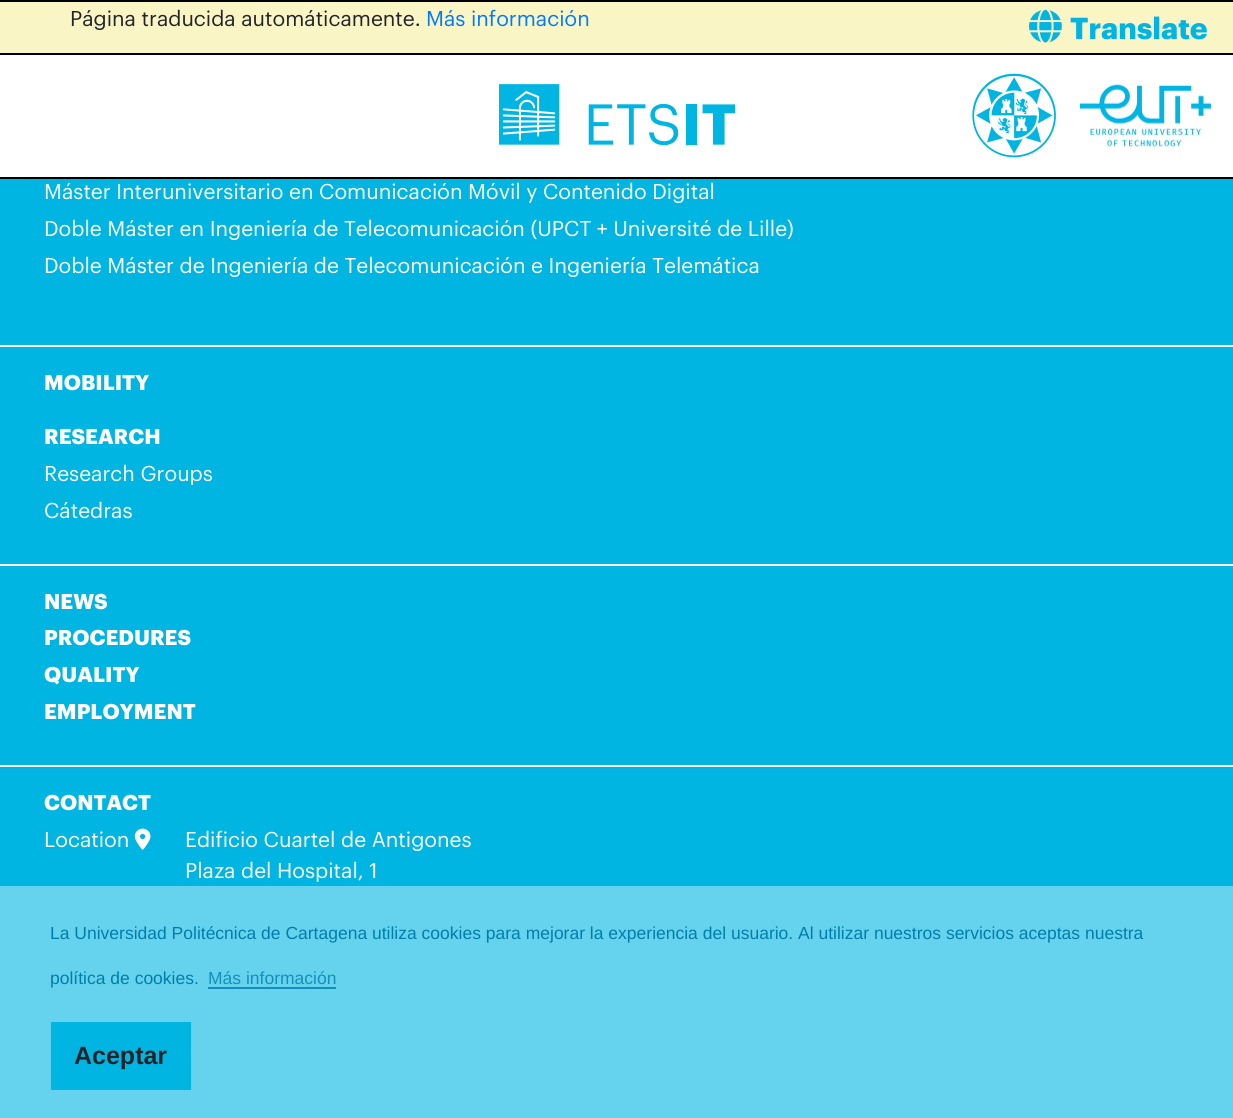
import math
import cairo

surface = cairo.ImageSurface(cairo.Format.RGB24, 1233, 1118)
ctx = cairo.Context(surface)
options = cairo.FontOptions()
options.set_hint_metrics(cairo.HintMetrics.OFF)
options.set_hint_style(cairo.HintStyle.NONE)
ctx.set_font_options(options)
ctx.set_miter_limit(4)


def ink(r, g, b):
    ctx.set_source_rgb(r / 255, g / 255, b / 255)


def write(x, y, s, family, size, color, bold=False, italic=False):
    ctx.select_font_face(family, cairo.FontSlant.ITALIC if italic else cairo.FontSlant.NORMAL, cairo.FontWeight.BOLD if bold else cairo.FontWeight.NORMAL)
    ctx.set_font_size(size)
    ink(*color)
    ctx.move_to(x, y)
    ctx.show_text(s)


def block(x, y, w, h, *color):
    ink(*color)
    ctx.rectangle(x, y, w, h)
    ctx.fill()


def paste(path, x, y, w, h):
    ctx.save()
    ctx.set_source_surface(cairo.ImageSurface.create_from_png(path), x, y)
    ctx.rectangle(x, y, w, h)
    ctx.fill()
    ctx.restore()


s1 = dict(family="Graphik", size=21, color=(33, 37, 41))
s2 = dict(family="Graphik", size=21, color=(0, 123, 255))
s3 = dict(family="Graphik", size=29.75, color=(0, 181, 226), bold=True)
s4 = dict(family="Graphik", size=21, color=(255, 255, 255))
s5 = dict(family="Graphik", size=21, color=(255, 255, 255), bold=True)
s6 = dict(family="Liberation Sans", size=17.5, color=(0, 126, 170))
s7 = dict(family="Liberation Sans", size=17.5, color=(20, 143, 184))
s8 = dict(family="Liberation Sans", size=25, color=(33, 37, 41), bold=True)

ink(0, 181, 226)
ctx.paint()
block(0, 2, 1233, 51, 250, 245, 197)
block(0, 0, 1233, 2, 0, 0, 0)
write(70, 26, "Página traducida automáticamente.", **s1)
write(426, 26, "Más información", **s2)
paste("pic1.png", 1029, 9, 33, 34)
write(1070, 39, "Translate", **s3)
block(0, 55, 1233, 122, 255, 255, 255)
block(0, 53, 1233, 2, 0, 0, 0)
block(0, 177, 1233, 2, 0, 0, 0)
paste("pic2.png", 499, 84, 236, 61)
paste("pic3.png", 972, 73, 84, 85)
paste("pic4.png", 1080, 84, 131, 63)
write(44, 199, "Máster Interuniversitario en Comunicación Móvil y Contenido Digital", **s4)
write(44, 236, "Doble Máster en Ingeniería de Telecomunicación (UPCT + Université de Lille)", **s4)
write(44, 273, "Doble Máster de Ingeniería de Telecomunicación e Ingeniería Telemática", **s4)
block(0, 345, 1233, 2, 255, 255, 255)
write(44, 390, "MOBILITY", **s5)
write(44, 444, "RESEARCH", **s5)
write(44, 481, "Research Groups", **s4)
write(44, 518, "Cátedras", **s4)
block(0, 564, 1233, 2, 255, 255, 255)
write(44, 609, "NEWS", **s5)
write(44, 645, "PROCEDURES", **s5)
write(44, 682, "QUALITY", **s5)
write(44, 719, "EMPLOYMENT", **s5)
block(0, 765, 1233, 2, 255, 255, 255)
write(44, 810, "CONTACT", **s5)
write(44, 847, "Location", **s4)
paste("pic5.png", 134, 828, 17, 22)
write(185, 847, "Edificio Cuartel de Antigones", **s4)
write(185, 878, "Plaza del Hospital, 1", **s4)
block(0, 886, 1233, 232, 102, 211, 238)
write(50, 939, "La Universidad Politécnica de Cartagena utiliza cookies para mejorar la experiencia del usuario. Al utilizar nuestros servicios aceptas nuestra", **s6)
write(50, 984, "política de cookies.", **s6)
write(208, 984, "Más información", **s7)
block(208, 987, 128, 2, 20, 143, 184)
block(51, 1022, 140, 68, 0, 181, 226)
write(74, 1064, "Aceptar", **s8)
surface.write_to_png("screenshot.png")
